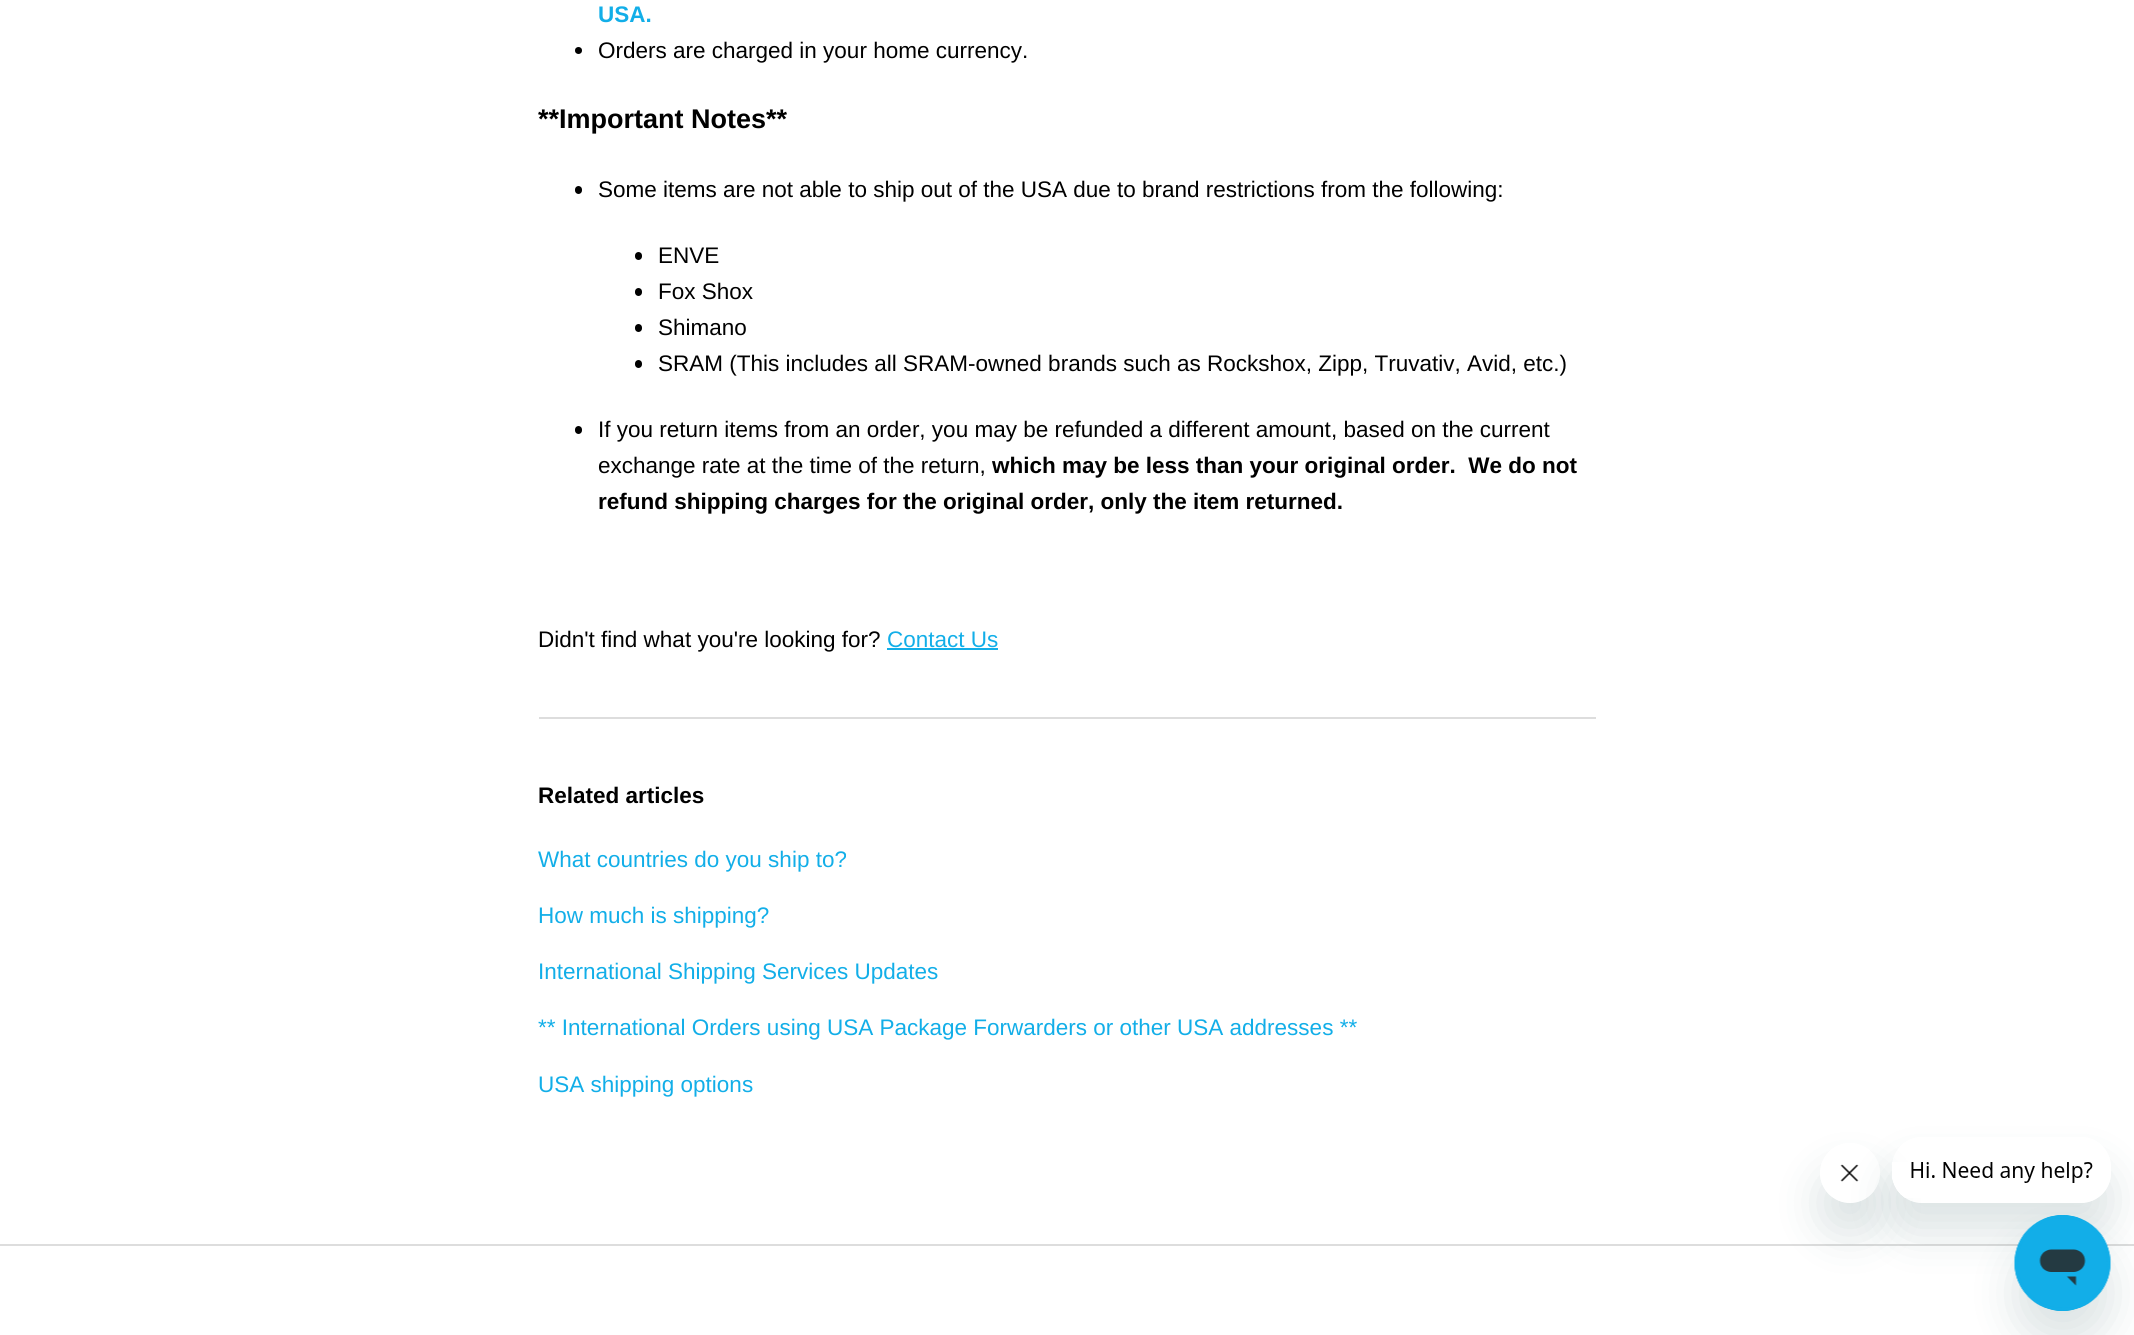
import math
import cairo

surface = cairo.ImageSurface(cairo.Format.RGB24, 2134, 1335)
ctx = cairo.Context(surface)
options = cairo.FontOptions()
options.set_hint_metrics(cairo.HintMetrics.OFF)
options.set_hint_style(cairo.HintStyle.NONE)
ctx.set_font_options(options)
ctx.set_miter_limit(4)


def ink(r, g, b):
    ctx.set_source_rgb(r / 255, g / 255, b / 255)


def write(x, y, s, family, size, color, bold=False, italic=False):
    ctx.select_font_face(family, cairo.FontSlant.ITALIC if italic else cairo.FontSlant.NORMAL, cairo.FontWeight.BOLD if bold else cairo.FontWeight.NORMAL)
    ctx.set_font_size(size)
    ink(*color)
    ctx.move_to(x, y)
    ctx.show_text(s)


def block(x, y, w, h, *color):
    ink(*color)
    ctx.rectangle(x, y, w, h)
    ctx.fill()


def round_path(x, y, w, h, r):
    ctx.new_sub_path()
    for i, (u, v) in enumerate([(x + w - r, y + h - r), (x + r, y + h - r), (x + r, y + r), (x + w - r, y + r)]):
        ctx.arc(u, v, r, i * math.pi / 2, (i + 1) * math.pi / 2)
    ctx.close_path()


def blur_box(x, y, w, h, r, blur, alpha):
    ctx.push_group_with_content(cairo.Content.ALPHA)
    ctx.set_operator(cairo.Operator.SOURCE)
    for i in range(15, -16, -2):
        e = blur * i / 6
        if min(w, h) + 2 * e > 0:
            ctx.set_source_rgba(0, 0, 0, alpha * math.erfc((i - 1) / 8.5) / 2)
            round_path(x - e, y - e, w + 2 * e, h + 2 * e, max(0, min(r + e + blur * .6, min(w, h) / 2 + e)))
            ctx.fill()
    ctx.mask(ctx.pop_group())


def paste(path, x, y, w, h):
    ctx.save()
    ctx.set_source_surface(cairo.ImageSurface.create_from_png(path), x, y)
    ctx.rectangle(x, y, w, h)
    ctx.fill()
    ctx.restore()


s1 = dict(family="Liberation Sans", size=22.5, color=(18, 174, 232), bold=True)
s2 = dict(family="Liberation Sans", size=22.5, color=(0, 0, 0))
s3 = dict(family="Liberation Sans", size=27, color=(0, 0, 0), bold=True)
s4 = dict(family="Liberation Sans", size=22.5, color=(0, 0, 0), bold=True)
s5 = dict(family="Liberation Sans", size=22.5, color=(18, 174, 232))

ink(255, 255, 255)
ctx.paint()
write(598, 22, "USA.", **s1)
ink(0, 0, 0)
ctx.new_path()
ctx.arc(578.5, 50.5, 3.5, 0, 2 * math.pi)
ctx.fill()
write(598, 58, "Orders are charged in your home currency.", **s2)
write(538, 128, "**Important Notes**", **s3)
round_path(575, 186, 7, 8, 3.5)
ctx.fill()
write(598, 197, "Some items are not able to ship out of the USA due to brand restrictions from the following:", **s2)
round_path(635, 252, 7, 8, 3.5)
ctx.fill()
write(658, 263, "ENVE", **s2)
round_path(635, 288, 7, 8, 3.5)
ctx.fill()
write(658, 299, "Fox Shox", **s2)
round_path(635, 324, 7, 8, 3.5)
ctx.fill()
write(658, 335, "Shimano", **s2)
round_path(635, 360, 7, 8, 3.5)
ctx.fill()
write(658, 371, "SRAM (This includes all SRAM-owned brands such as Rockshox, Zipp, Truvativ, Avid, etc.)", **s2)
round_path(575, 426, 7, 8, 3.5)
ctx.fill()
write(598, 437, "If you return items from an order, you may be refunded a different amount, based on the current", **s2)
write(598, 473, "exchange rate at the time of the return,", **s2)
write(992, 473, "which may be less than your original order.  We do not", **s4)
write(598, 509, "refund shipping charges for the original order, only the item returned.", **s4)
write(538, 647, "Didn't find what you're looking for?", **s2)
write(887, 647, "Contact Us", **s5)
block(887, 648, 111, 2, 18, 174, 232)
block(539, 717, 1057, 2, 221, 221, 221)
write(538, 803, "Related articles", **s4)
write(538, 867, "What countries do you ship to?", **s5)
write(538, 923, "How much is shipping?", **s5)
write(538, 979, "International Shipping Services Updates", **s5)
write(538, 1035, "** International Orders using USA Package Forwarders or other USA addresses **", **s5)
write(538, 1092, "USA shipping options", **s5)
block(0, 1244, 2134, 2, 221, 221, 221)
ctx.save()
ctx.set_fill_rule(cairo.FillRule.EVEN_ODD)
ctx.new_path()
ctx.move_to(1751, 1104)
ctx.line_to(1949, 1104)
ctx.line_to(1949, 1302)
ctx.line_to(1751, 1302)
ctx.close_path()
ctx.move_to(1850, 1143)
ctx.curve_to(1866.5, 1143, 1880, 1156.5, 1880, 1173)
ctx.curve_to(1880, 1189.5, 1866.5, 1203, 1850, 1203)
ctx.curve_to(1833.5, 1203, 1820, 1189.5, 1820, 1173)
ctx.curve_to(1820, 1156.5, 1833.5, 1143, 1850, 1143)
ctx.close_path()
ctx.clip()
ink(23, 73, 77)
blur_box(1820, 1173, 60, 60, 30, 22.5, 0.15)
ctx.restore()
paste("pic2.png", 1840, 1164, 19, 18)
ctx.save()
ctx.set_fill_rule(cairo.FillRule.EVEN_ODD)
ctx.new_path()
ctx.move_to(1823, 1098)
ctx.line_to(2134, 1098)
ctx.line_to(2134, 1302)
ctx.line_to(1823, 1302)
ctx.close_path()
ctx.move_to(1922, 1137)
ctx.line_to(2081, 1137)
ctx.curve_to(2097.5, 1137, 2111, 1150.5, 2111, 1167)
ctx.line_to(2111, 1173)
ctx.curve_to(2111, 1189.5, 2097.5, 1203, 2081, 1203)
ctx.line_to(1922, 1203)
ctx.curve_to(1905.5, 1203, 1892, 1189.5, 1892, 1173)
ctx.line_to(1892, 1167)
ctx.curve_to(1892, 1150.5, 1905.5, 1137, 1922, 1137)
ctx.close_path()
ctx.clip()
ink(23, 73, 77)
blur_box(1892, 1167, 219, 66, 30, 22.5, 0.15)
ctx.restore()
paste("pic1.png", 1892, 1162, 201, 36)
ink(23, 73, 77)
blur_box(2015, 1245, 96, 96, 48, 22.5, 0.15)
paste("pic3.png", 2014, 1215, 97, 96)
surface.write_to_png("screenshot.png")
